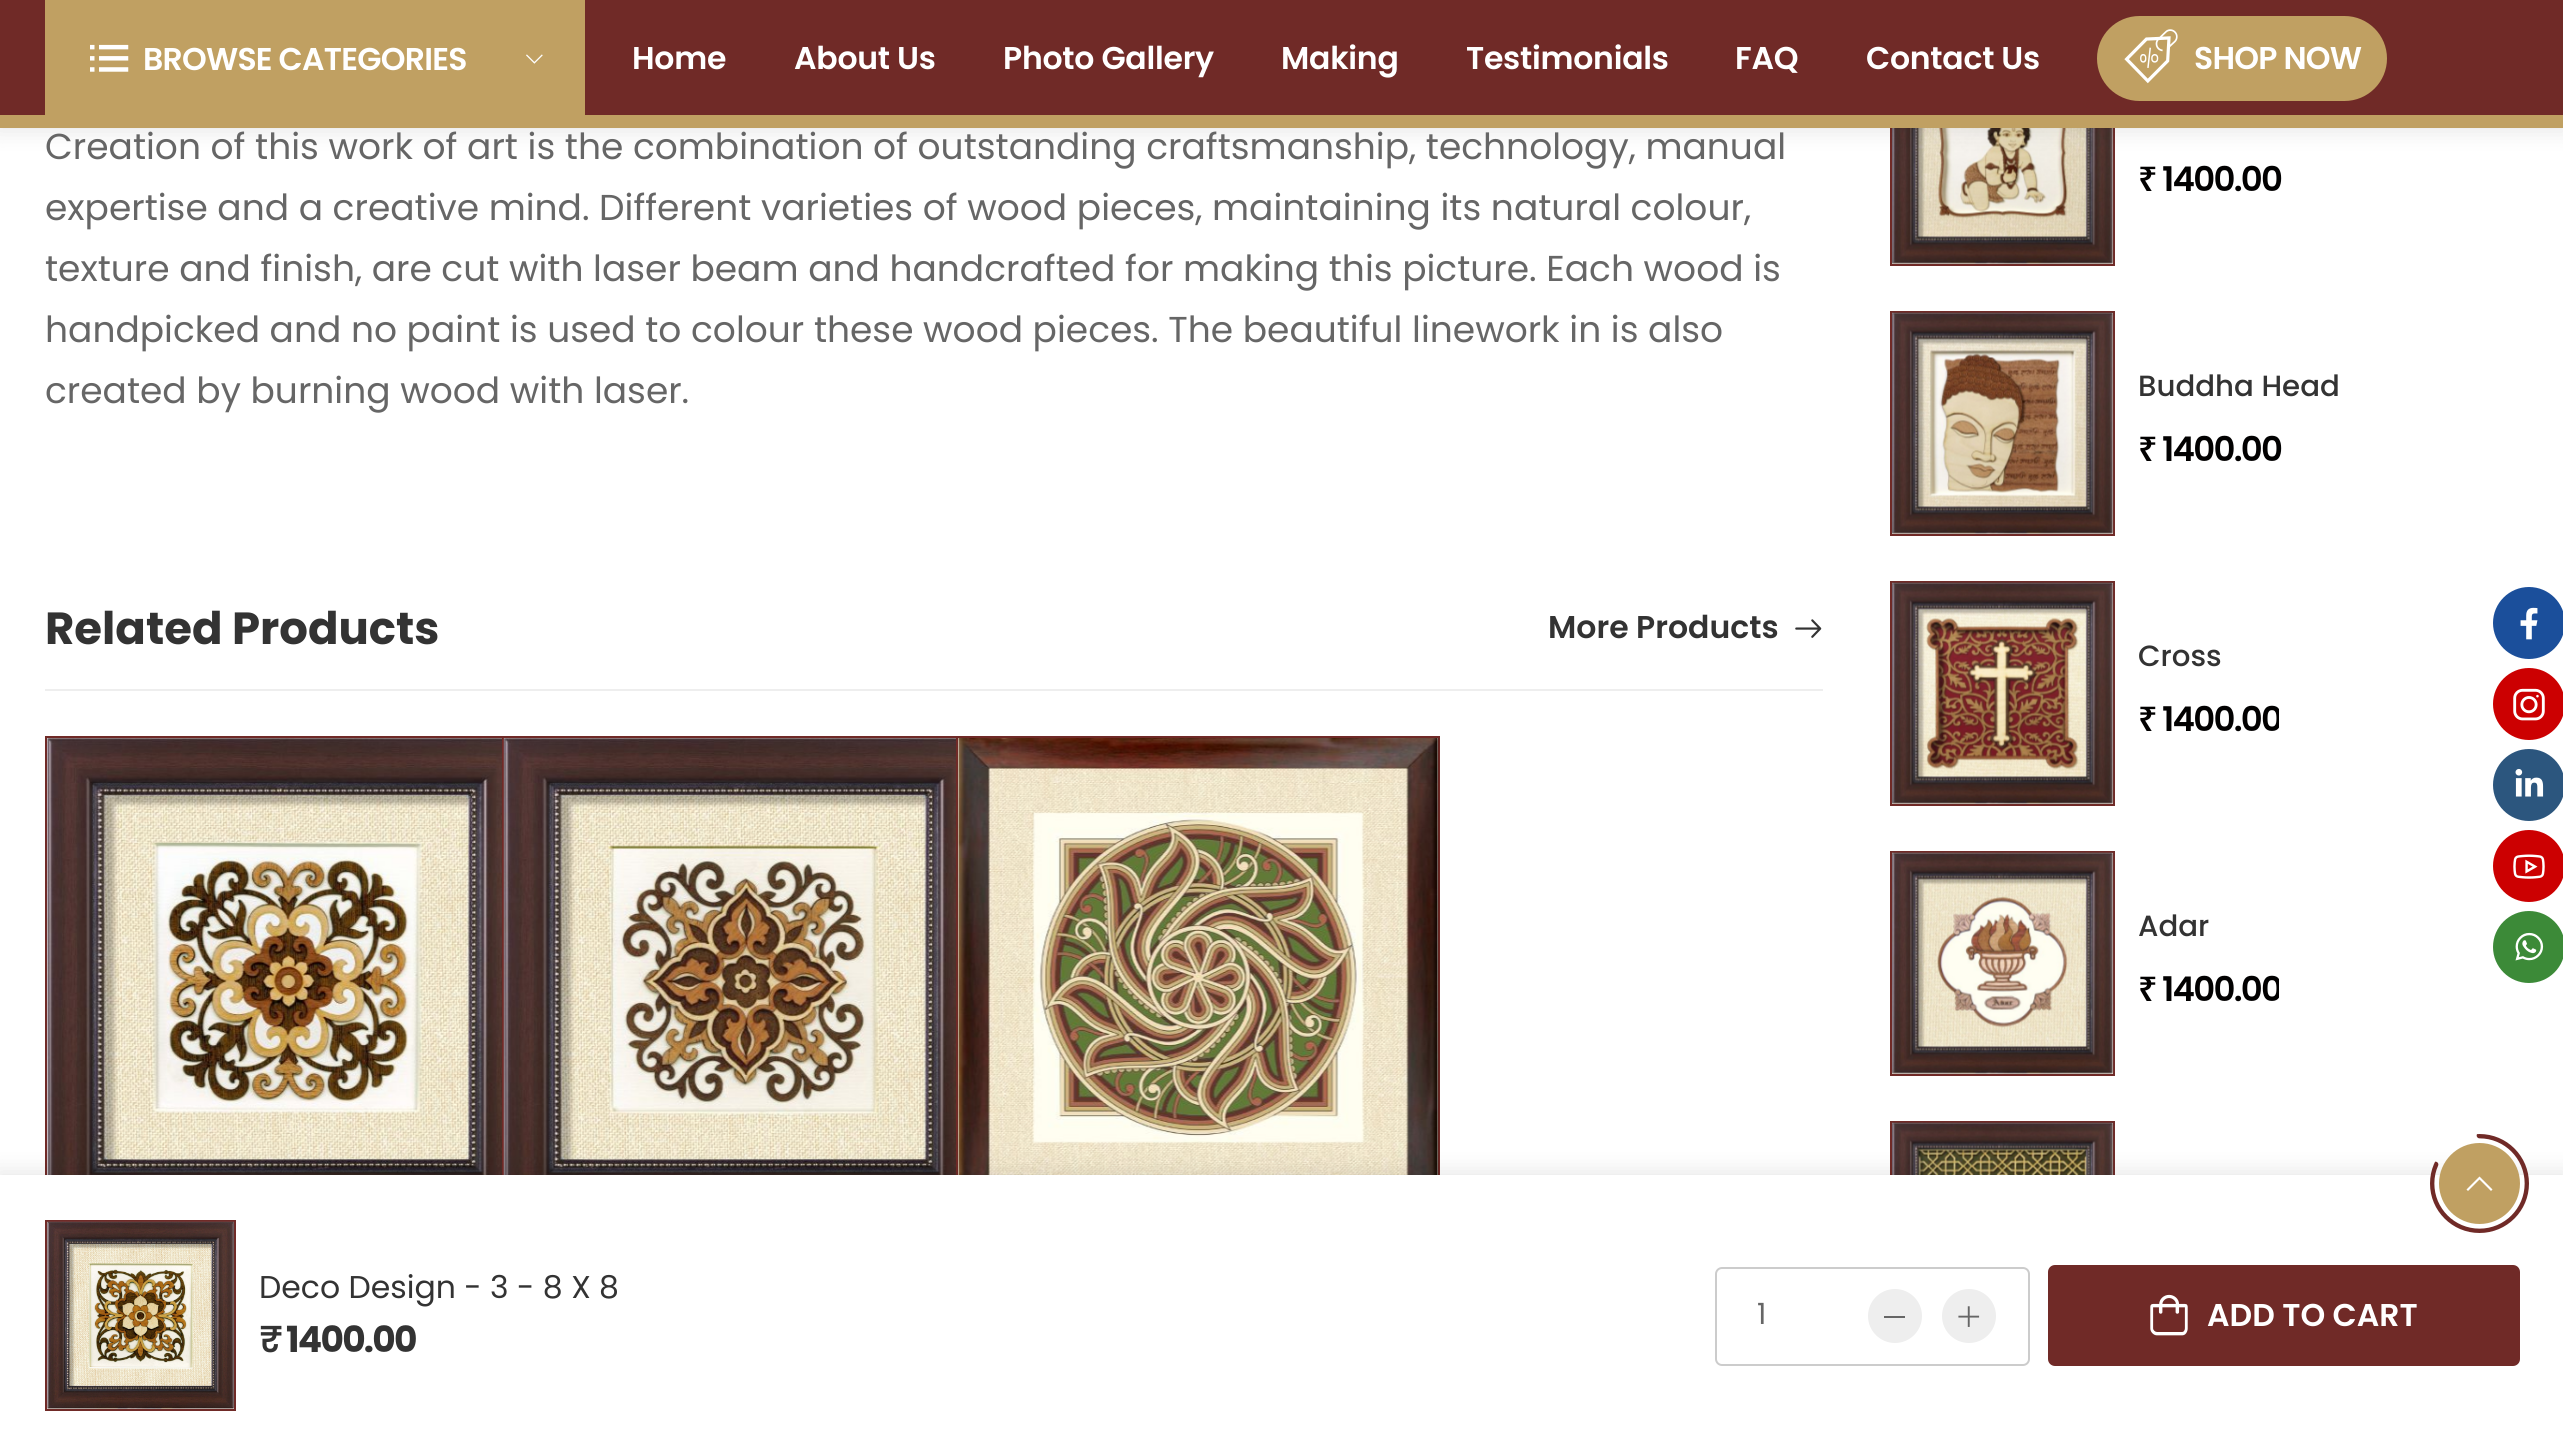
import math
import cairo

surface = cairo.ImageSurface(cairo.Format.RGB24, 2563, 1455)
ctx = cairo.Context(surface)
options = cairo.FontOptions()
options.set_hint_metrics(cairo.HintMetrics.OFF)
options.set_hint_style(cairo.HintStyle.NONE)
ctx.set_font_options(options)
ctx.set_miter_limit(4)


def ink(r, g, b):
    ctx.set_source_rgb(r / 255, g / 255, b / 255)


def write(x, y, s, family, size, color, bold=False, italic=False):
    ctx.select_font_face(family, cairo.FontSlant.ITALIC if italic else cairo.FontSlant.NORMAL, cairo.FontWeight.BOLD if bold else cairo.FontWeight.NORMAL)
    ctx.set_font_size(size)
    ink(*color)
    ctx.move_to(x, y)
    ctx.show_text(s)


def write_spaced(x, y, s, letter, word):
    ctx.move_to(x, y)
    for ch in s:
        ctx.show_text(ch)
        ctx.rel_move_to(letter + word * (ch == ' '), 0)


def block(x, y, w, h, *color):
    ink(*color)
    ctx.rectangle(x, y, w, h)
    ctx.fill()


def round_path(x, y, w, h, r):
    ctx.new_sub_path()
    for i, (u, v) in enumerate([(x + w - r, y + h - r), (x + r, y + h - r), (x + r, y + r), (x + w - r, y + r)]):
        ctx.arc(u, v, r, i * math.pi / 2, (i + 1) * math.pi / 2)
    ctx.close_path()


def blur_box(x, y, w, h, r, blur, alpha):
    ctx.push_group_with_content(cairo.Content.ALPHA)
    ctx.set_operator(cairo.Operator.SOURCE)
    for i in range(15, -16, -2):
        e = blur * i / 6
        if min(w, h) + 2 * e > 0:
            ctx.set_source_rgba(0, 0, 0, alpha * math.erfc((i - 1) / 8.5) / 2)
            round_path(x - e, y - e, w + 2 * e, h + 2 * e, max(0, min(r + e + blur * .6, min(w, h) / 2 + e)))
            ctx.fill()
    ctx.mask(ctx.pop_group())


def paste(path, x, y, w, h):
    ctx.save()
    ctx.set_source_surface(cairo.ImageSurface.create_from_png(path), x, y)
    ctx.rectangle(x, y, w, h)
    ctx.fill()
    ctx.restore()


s1 = dict(family="Poppins", size=36, color=(102, 102, 102))
s2 = dict(family="Poppins", size=45, color=(51, 51, 51), bold=True)
s3 = dict(family="Poppins SemiBold", size=31.5, color=(51, 51, 51))
s4 = dict(family="Poppins", size=31.5, color=(51, 51, 51))
s5 = dict(family="Poppins", size=29.25, color=(102, 102, 102))
s6 = dict(family="Poppins SemiBold", size=31.5, color=(255, 255, 255))
s7 = dict(family="Poppins Medium", size=29.25, color=(51, 51, 51))

ink(255, 255, 255)
ctx.paint()
block(1892, 128, 221, 136, 246, 239, 228)
ctx.rectangle(1891, 42, 223, 223)
ink(112, 42, 39)
ctx.stroke()
paste("pic11.png", 1892, 128, 222, 136)
ink(0, 0, 0)
blur_box(-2, -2, 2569, 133, 0, 11, 0.1)
block(0, 0, 2563, 115, 112, 42, 39)
block(0, 115, 2563, 13, 192, 160, 98)
block(45, 0, 540, 115, 192, 160, 98)
paste("pic1.png", 90, 44, 39, 28)
ctx.select_font_face("Poppins SemiBold")
ctx.set_font_size(31.5)
ink(255, 255, 255)
write_spaced(143, 70, "BROWSE CATEGORIES", -0.75, 0)
paste("pic2.png", 526, 54, 17, 10)
write_spaced(632, 69, "Home", -0.25, 0)
write_spaced(794, 69, "About Us", -0.25, 0)
write_spaced(1003, 69, "Photo Gallery", -0.25, 0)
write_spaced(1281, 69, "Making", -0.25, 0)
write_spaced(1466, 69, "Testimonials", -0.25, 0)
write_spaced(1735, 69, "FAQ", -0.25, 0)
write_spaced(1866, 69, "Contact Us", -0.25, 0)
ink(192, 160, 98)
round_path(2099.5, 18.5, 285, 80, 40)
ctx.fill_preserve()
ctx.set_line_width(5)
ctx.stroke()
paste("pic3.png", 2124, 29, 54, 55)
ink(255, 255, 255)
write_spaced(2194, 69, "SHOP NOW", -0.75, 0)
write(45, 159, "Creation of this work of art is the combination of outstanding craftsmanship, technology, manual", **s1)
write(45, 220, "expertise and a creative mind. Different varieties of wood pieces, maintaining its natural colour,", **s1)
write(45, 281, "texture and finish, are cut with laser beam and handcrafted for making this picture. Each wood is", **s1)
write(45, 342, "handpicked and no paint is used to colour these wood pieces. The beautiful linework in is also", **s1)
write(45, 403, "created by burning wood with laser.", **s1)
write(45, 644, "Related Products", **s2)
write(1548, 638, "More Products", **s3)
paste("pic4.png", 1795, 619, 27, 19)
block(45, 689, 1778, 2, 238, 238, 238)
ctx.rectangle(46, 737, 482, 482)
ink(112, 42, 39)
ctx.set_line_width(2)
ctx.stroke()
paste("pic5.png", 47, 738, 458, 437)
ctx.rectangle(503, 737, 482, 482)
ctx.stroke()
paste("pic6.png", 503, 738, 453, 437)
block(958, 738, 480, 437, 246, 239, 228)
ctx.rectangle(957, 737, 482, 482)
ink(112, 42, 39)
ctx.stroke()
paste("pic7.png", 958, 738, 481, 437)
block(1892, 1123, 221, 52, 246, 239, 228)
ctx.rectangle(1891, 1122, 223, 223)
ink(112, 42, 39)
ctx.stroke()
paste("pic15.png", 1892, 1122, 222, 53)
ink(0, 0, 0)
blur_box(-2, 1172, 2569, 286, 0, 11, 0.1)
block(0, 1175, 2563, 280, 255, 255, 255)
ink(246, 239, 228)
ctx.rectangle(46, 1221, 189, 189)
ctx.fill_preserve()
ink(112, 42, 39)
ctx.stroke()
paste("pic8.png", 47, 1221, 187, 188)
write(259, 1298, "Deco Design - 3 - 8 X 8", **s4)
ctx.select_font_face("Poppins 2", cairo.FontSlant.NORMAL, cairo.FontWeight.BOLD)
ctx.set_font_size(36)
write_spaced(259, 1352, "₹", -1.75, 0)
ctx.select_font_face("Poppins", cairo.FontSlant.NORMAL, cairo.FontWeight.BOLD)
write_spaced(286, 1352, "1400.00", -1.75, 0)
round_path(1716, 1268, 313, 97, 6)
ink(204, 204, 204)
ctx.stroke()
write(1757, 1324, "1", **s5)
ink(238, 238, 238)
ctx.new_path()
ctx.arc(1895, 1316, 27, 0, 2 * math.pi)
ctx.fill()
block(1884, 1316, 21, 2, 102, 102, 102)
ink(238, 238, 238)
ctx.arc(1969, 1316, 27, 0, 2 * math.pi)
ctx.fill()
paste("pic9.png", 1958, 1306, 22, 21)
ink(112, 42, 39)
round_path(2050.5, 1267.5, 467, 96, 4.5)
ctx.fill_preserve()
ctx.set_line_width(5)
ctx.stroke()
paste("pic10.png", 2150, 1294, 38, 42)
write(2207, 1326, "ADD TO CART", **s6)
ctx.select_font_face("Noto Sans SemiBold")
ctx.set_font_size(34)
ink(2, 1, 1)
write_spaced(2138, 191, "₹", -1.75, 0)
ctx.select_font_face("Poppins SemiBold")
write_spaced(2162, 191, "1400.00", -1.75, 0)
ink(246, 239, 228)
ctx.rectangle(1891, 312, 223, 223)
ctx.fill_preserve()
ink(112, 42, 39)
ctx.set_line_width(2)
ctx.stroke()
paste("pic12.png", 1892, 312, 222, 222)
write(2138, 396, "Buddha Head", **s7)
ctx.select_font_face("Noto Sans SemiBold")
ctx.set_font_size(34)
ink(2, 1, 1)
write_spaced(2138, 461, "₹", -1.75, 0)
ctx.select_font_face("Poppins SemiBold")
write_spaced(2162, 461, "1400.00", -1.75, 0)
ink(246, 239, 228)
ctx.rectangle(1891, 582, 223, 223)
ctx.fill_preserve()
ink(112, 42, 39)
ctx.stroke()
paste("pic13.png", 1892, 582, 222, 222)
write(2138, 666, "Cross", **s7)
ctx.select_font_face("Noto Sans SemiBold")
ctx.set_font_size(34)
ink(2, 1, 1)
write_spaced(2138, 731, "₹", -1.75, 0)
ctx.save()
ctx.rectangle(2138, 693, 141, 54)
ctx.clip()
ctx.select_font_face("Poppins SemiBold")
write_spaced(2162, 731, "1400.00", -1.75, 0)
ctx.restore()
ink(246, 239, 228)
ctx.rectangle(1891, 852, 223, 223)
ctx.fill_preserve()
ink(112, 42, 39)
ctx.stroke()
paste("pic14.png", 1892, 852, 222, 222)
write(2138, 936, "Adar", **s7)
ctx.select_font_face("Noto Sans SemiBold")
ctx.set_font_size(34)
ink(2, 1, 1)
write_spaced(2138, 1001, "₹", -1.75, 0)
ctx.save()
ctx.rectangle(2138, 963, 141, 54)
ctx.clip()
ctx.select_font_face("Poppins SemiBold")
write_spaced(2162, 1001, "1400.00", -1.75, 0)
ctx.restore()
ink(27, 79, 155)
ctx.new_path()
ctx.arc(2529, 623, 33.5, 0, 2 * math.pi)
ctx.fill_preserve()
ctx.set_line_width(5)
ctx.stroke()
paste("pic16.png", 2520, 607, 18, 33)
ink(204, 0, 1)
ctx.arc(2529, 704, 33.5, 0, 2 * math.pi)
ctx.fill_preserve()
ctx.stroke()
paste("pic17.png", 2513, 688, 32, 33)
ink(44, 86, 126)
ctx.arc(2529, 785, 33.5, 0, 2 * math.pi)
ctx.fill_preserve()
ctx.stroke()
paste("pic18.png", 2515, 768, 29, 29)
ink(204, 0, 1)
ctx.arc(2529, 866, 33.5, 0, 2 * math.pi)
ctx.fill_preserve()
ctx.stroke()
paste("pic19.png", 2513, 854, 32, 25)
ink(60, 138, 56)
ctx.arc(2529, 947, 33.5, 0, 2 * math.pi)
ctx.fill_preserve()
ctx.stroke()
paste("pic20.png", 2515, 932, 29, 29)
ctx.save()
round_path(2430, 1134, 99, 99, 49.5)
ctx.clip()
ctx.new_path()
ctx.move_to(2479.5, 1135.5)
ctx.curve_to(2506, 1135.5, 2527.5, 1157, 2527.5, 1183.5)
ctx.curve_to(2527.5, 1210, 2506, 1231.5, 2479.5, 1231.5)
ctx.curve_to(2453, 1231.5, 2431.5, 1210, 2431.5, 1183.5)
ctx.curve_to(2431.5, 1176.5, 2433, 1170, 2435.5, 1164.5)
ink(112, 42, 39)
ctx.set_line_width(5.7)
ctx.set_line_cap(cairo.LineCap.ROUND)
ctx.stroke()
ctx.restore()
ink(192, 160, 98)
ctx.arc(2479.5, 1183.5, 38, 0, 2 * math.pi)
ctx.fill_preserve()
ctx.stroke()
ink(255, 255, 255)
ctx.new_path()
ctx.move_to(2479.5, 1176.5)
ctx.line_to(2466.5, 1189.5)
ctx.line_to(2468, 1191)
ctx.line_to(2479.5, 1179.5)
ctx.line_to(2491, 1191)
ctx.line_to(2492.5, 1189.5)
ctx.close_path()
ctx.fill()
surface.write_to_png("screenshot.png")
